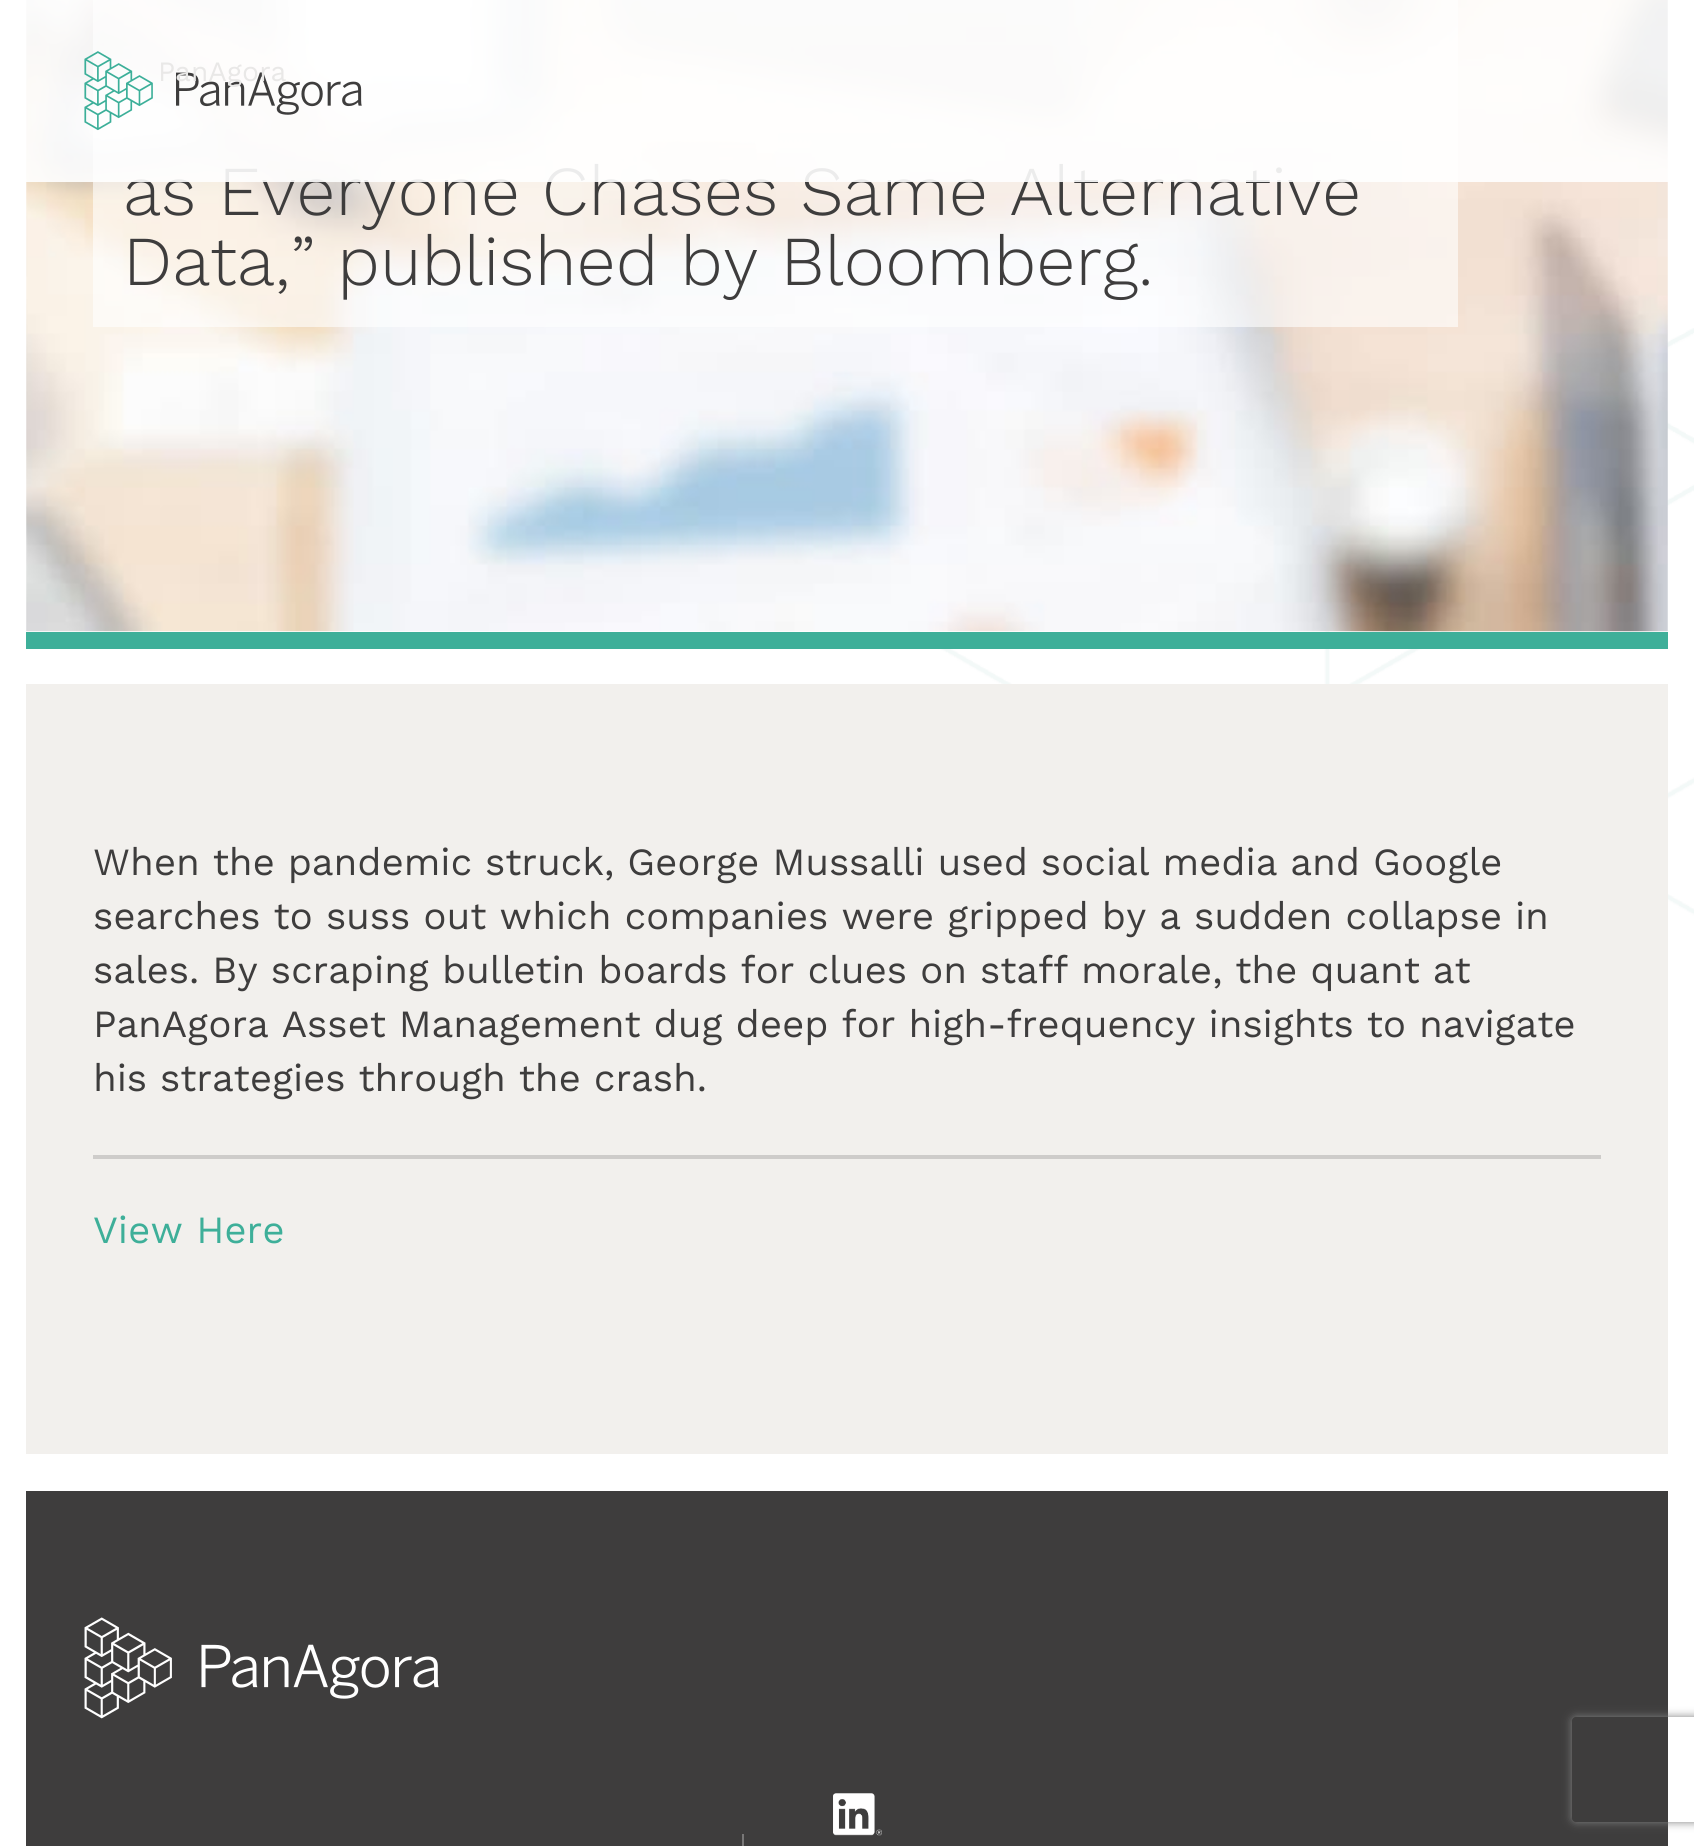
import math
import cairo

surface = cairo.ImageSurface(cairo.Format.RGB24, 1694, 1846)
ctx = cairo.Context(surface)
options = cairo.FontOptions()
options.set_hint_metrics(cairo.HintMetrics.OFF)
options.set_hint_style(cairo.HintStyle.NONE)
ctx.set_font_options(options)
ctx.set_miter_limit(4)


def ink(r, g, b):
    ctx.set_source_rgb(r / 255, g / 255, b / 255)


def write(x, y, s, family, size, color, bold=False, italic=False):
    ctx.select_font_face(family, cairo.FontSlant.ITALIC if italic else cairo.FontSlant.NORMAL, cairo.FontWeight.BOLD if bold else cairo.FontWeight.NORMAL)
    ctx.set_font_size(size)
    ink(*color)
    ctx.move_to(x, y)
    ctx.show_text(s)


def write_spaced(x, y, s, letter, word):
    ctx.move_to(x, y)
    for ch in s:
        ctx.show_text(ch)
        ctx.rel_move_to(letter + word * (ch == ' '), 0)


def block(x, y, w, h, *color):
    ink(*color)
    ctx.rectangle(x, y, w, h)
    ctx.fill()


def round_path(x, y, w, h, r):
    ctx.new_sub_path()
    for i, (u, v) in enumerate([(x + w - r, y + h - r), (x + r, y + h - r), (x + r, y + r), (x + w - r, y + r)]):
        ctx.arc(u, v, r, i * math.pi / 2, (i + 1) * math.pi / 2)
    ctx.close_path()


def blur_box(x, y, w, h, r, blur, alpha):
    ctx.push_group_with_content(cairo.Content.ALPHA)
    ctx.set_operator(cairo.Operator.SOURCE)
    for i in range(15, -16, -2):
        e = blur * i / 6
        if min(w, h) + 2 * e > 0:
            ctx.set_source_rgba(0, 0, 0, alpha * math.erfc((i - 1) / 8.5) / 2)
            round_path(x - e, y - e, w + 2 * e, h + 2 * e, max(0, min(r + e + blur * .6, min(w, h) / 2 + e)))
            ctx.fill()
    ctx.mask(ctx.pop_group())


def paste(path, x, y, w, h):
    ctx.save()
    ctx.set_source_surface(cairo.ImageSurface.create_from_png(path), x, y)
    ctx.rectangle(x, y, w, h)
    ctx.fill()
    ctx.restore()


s1 = dict(family="Work Sans Light", size=70, color=(62, 61, 61))
s2 = dict(family="Work Sans", size=28, color=(233, 232, 231))

ink(255, 255, 255)
ctx.paint()
paste("pic1.png", 593, 146, 1101, 787)
paste("pic3.png", 26, 0, 1642, 632)
ctx.set_source_rgba(1, 1, 1, 0.6)
ctx.rectangle(93, 0, 1365, 327)
ctx.fill()
write(123, 215, "as Everyone Chases Same Alternative", **s1)
ctx.set_source_rgba(1, 1, 1, 0.9)
ctx.rectangle(26, 0, 1642, 182)
ctx.fill()
paste("pic2.png", 84, 51, 278, 80)
write(158, 81, "PanAgora", **s2)
block(26, 632, 1642, 17, 62, 175, 153)
write(123, 285, "Data,” published by Bloomberg.", **s1)
block(26, 684, 1642, 770, 242, 240, 237)
ctx.select_font_face("Work Sans")
ctx.set_font_size(38.5)
ink(62, 61, 61)
write_spaced(93, 875, "When the pandemic struck, George Mussalli used social media and Google", -0.1, 0)
write_spaced(93, 929, "searches to suss out which companies were gripped by a sudden collapse in", -0.1, 0)
write_spaced(93, 983, "sales. By scraping bulletin boards for clues on staff morale, the quant at", -0.1, 0)
write_spaced(93, 1037, "PanAgora Asset Management dug deep for high-frequency insights to navigate", -0.1, 0)
write_spaced(93, 1091, "his strategies through the crash.", -0.1, 0)
block(93, 1155, 1508, 4, 206, 204, 202)
ink(62, 175, 153)
write_spaced(93, 1243, "View Here", -0.1, 0)
block(26, 1491, 1642, 355, 62, 61, 61)
paste("pic4.png", 84, 1617, 355, 102)
paste("pic5.png", 833, 1793, 49, 43)
block(742, 1834, 2, 12, 120, 119, 119)
ctx.save()
ctx.set_fill_rule(cairo.FillRule.EVEN_ODD)
ctx.new_path()
ctx.move_to(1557, 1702)
ctx.line_to(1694, 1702)
ctx.line_to(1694, 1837)
ctx.line_to(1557, 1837)
ctx.close_path()
ctx.move_to(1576, 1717)
ctx.line_to(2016, 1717)
ctx.curve_to(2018, 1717, 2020, 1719, 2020, 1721)
ctx.line_to(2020, 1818)
ctx.curve_to(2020, 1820, 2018, 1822, 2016, 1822)
ctx.line_to(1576, 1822)
ctx.curve_to(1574, 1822, 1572, 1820, 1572, 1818)
ctx.line_to(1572, 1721)
ctx.curve_to(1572, 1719, 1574, 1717, 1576, 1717)
ctx.close_path()
ctx.clip()
ink(128, 128, 128)
blur_box(1572, 1717, 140, 105, 4, 4.5, 1)
ctx.restore()
surface.write_to_png("screenshot.png")
